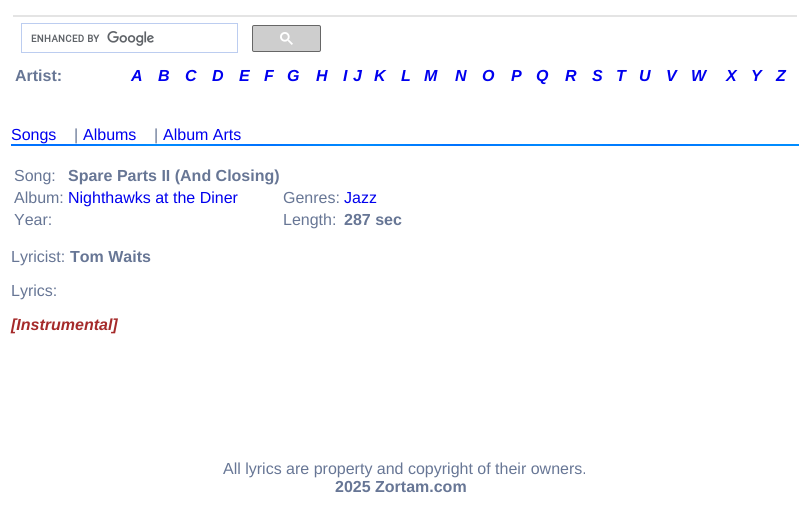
import math
import cairo

surface = cairo.ImageSurface(cairo.Format.RGB24, 810, 524)
ctx = cairo.Context(surface)
options = cairo.FontOptions()
options.set_hint_metrics(cairo.HintMetrics.OFF)
options.set_hint_style(cairo.HintStyle.NONE)
ctx.set_font_options(options)
ctx.set_miter_limit(4)


def ink(r, g, b):
    ctx.set_source_rgb(r / 255, g / 255, b / 255)


def write(x, y, s, family, size, color, bold=False, italic=False):
    ctx.select_font_face(family, cairo.FontSlant.ITALIC if italic else cairo.FontSlant.NORMAL, cairo.FontWeight.BOLD if bold else cairo.FontWeight.NORMAL)
    ctx.set_font_size(size)
    ink(*color)
    ctx.move_to(x, y)
    ctx.show_text(s)


def block(x, y, w, h, *color):
    ink(*color)
    ctx.rectangle(x, y, w, h)
    ctx.fill()


def round_path(x, y, w, h, r):
    ctx.new_sub_path()
    for i, (u, v) in enumerate([(x + w - r, y + h - r), (x + r, y + h - r), (x + r, y + r), (x + w - r, y + r)]):
        ctx.arc(u, v, r, i * math.pi / 2, (i + 1) * math.pi / 2)
    ctx.close_path()


def paste(path, x, y, w, h):
    ctx.save()
    ctx.set_source_surface(cairo.ImageSurface.create_from_png(path), x, y)
    ctx.rectangle(x, y, w, h)
    ctx.fill()
    ctx.restore()


s1 = dict(family="Liberation Sans", size=16, color=(103, 118, 149), bold=True)
s2 = dict(family="Liberation Sans", size=16, color=(0, 0, 238), bold=True, italic=True)
s3 = dict(family="Liberation Sans", size=16, color=(0, 0, 238))
s4 = dict(family="Liberation Sans", size=16, color=(103, 118, 149))
s5 = dict(family="Liberation Sans", size=16, color=(165, 42, 42), bold=True, italic=True)

ink(255, 255, 255)
ctx.paint()
block(13, 15, 784, 2, 228, 228, 228)
ctx.rectangle(21.5, 23.5, 216, 29)
ink(188, 205, 240)
ctx.set_line_width(1)
ctx.stroke()
paste("pic1.png", 31, 31, 123, 15)
ink(206, 206, 206)
round_path(252.5, 25.5, 68, 26, 1.5)
ctx.fill_preserve()
ink(102, 102, 102)
ctx.stroke()
paste("pic2.png", 280, 32, 13, 13)
write(15, 81, "Artist:", **s1)
write(131, 81, "A", **s2)
write(158, 81, "B", **s2)
write(185, 81, "C", **s2)
write(212, 81, "D", **s2)
write(239, 81, "E", **s2)
write(264, 81, "F", **s2)
write(287, 81, "G", **s2)
write(316, 81, "H", **s2)
write(343, 81, "I", **s2)
write(353, 81, "J", **s2)
write(374, 81, "K", **s2)
write(401, 81, "L", **s2)
write(424, 81, "M", **s2)
write(455, 81, "N", **s2)
write(482, 81, "O", **s2)
write(511, 81, "P", **s2)
write(536, 81, "Q", **s2)
write(565, 81, "R", **s2)
write(592, 81, "S", **s2)
write(616, 81, "T", **s2)
write(639, 81, "U", **s2)
write(666, 81, "V", **s2)
write(691, 81, "W", **s2)
write(726, 81, "X", **s2)
write(751, 81, "Y", **s2)
write(776, 81, "Z", **s2)
write(11, 140, "Songs", **s3)
write(74, 140, "|", **s4)
write(83, 140, "Albums", **s3)
write(154, 140, "|", **s4)
write(163, 140, "Album Arts", **s3)
paste("pic3.png", 11, 144, 788, 2)
write(14, 181, "Song:", **s4)
write(68, 181, "Spare Parts II (And Closing)", **s1)
write(14, 203, "Album:", **s4)
write(68, 203, "Nighthawks at the Diner", **s3)
write(283, 203, "Genres:", **s4)
write(344, 203, "Jazz", **s3)
write(14, 225, "Year:", **s4)
write(283, 225, "Length:", **s4)
write(344, 225, "287 sec", **s1)
write(11, 262, "Lyricist:", **s4)
write(70, 262, "Tom Waits", **s1)
write(11, 296, "Lyrics:", **s4)
write(11, 330, "[Instrumental]", **s5)
write(223, 474, "All lyrics are property and copyright of their owners.", **s4)
write(335, 492, "2025 Zortam.com", **s1)
surface.write_to_png("screenshot.png")
